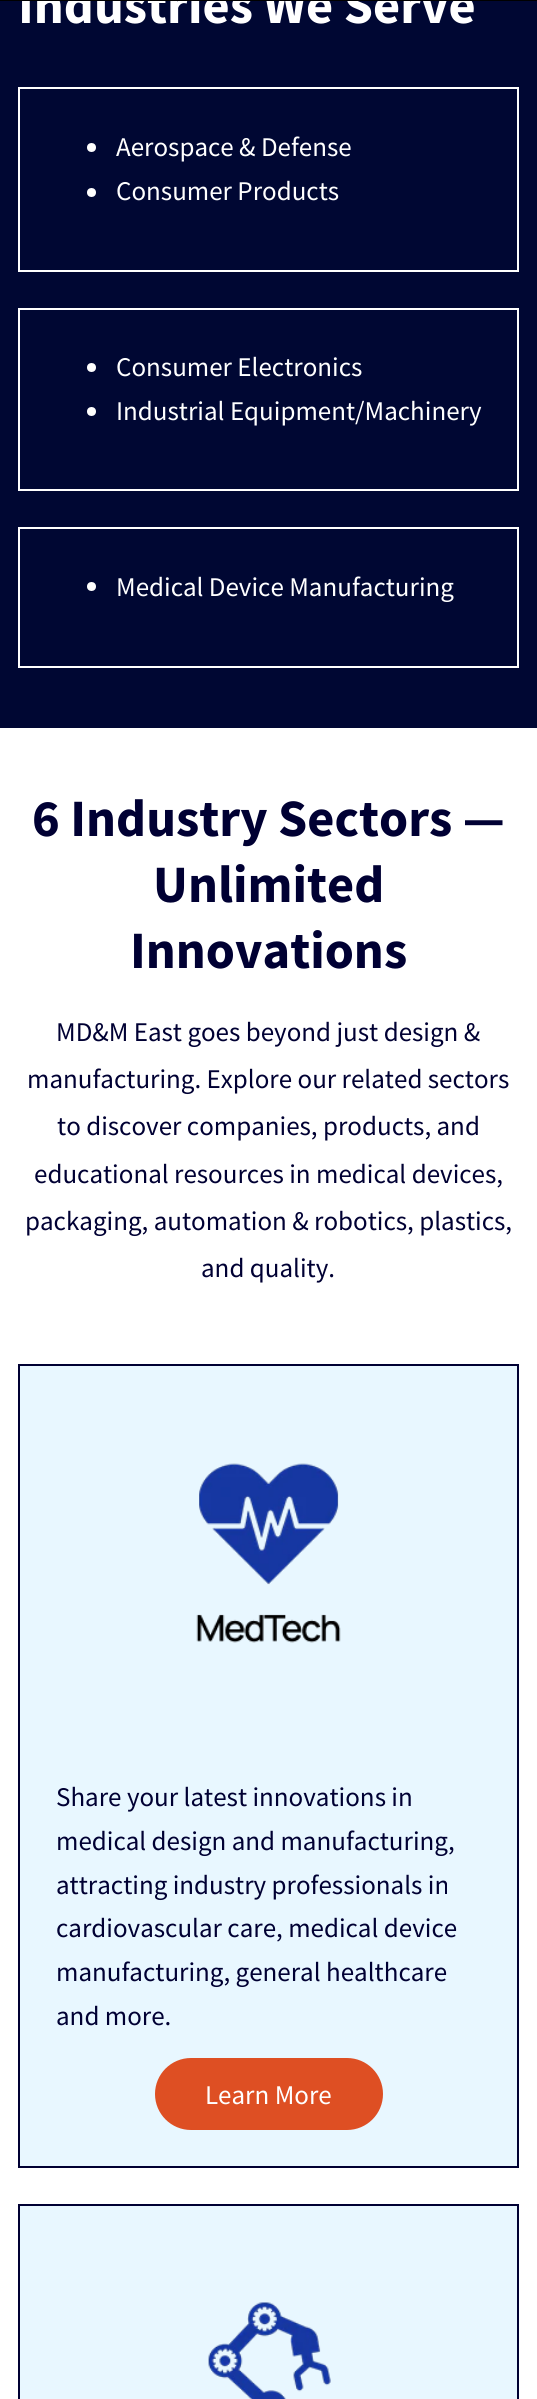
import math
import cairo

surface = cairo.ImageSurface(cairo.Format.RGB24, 537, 2399)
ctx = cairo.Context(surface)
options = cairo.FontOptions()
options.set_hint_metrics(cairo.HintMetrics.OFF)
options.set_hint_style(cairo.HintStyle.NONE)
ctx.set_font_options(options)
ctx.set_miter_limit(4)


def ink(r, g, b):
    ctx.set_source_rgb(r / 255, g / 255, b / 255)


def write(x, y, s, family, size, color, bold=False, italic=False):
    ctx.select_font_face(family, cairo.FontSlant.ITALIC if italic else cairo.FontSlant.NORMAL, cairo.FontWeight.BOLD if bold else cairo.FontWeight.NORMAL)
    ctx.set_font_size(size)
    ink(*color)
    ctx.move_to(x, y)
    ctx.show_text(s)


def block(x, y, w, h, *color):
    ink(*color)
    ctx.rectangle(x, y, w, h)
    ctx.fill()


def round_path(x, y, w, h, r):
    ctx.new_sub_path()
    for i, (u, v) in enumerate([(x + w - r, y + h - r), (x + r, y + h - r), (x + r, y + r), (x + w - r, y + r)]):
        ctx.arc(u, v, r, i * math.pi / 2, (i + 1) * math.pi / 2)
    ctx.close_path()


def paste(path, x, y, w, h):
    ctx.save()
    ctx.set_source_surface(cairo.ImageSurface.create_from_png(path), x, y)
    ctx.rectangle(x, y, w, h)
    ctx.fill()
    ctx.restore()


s1 = dict(family="Source Sans Pro", size=52.5, color=(255, 255, 255), bold=True)
s2 = dict(family="Source Sans Pro", size=27, color=(255, 255, 255))
s3 = dict(family="Source Sans Pro", size=52.5, color=(0, 0, 51), bold=True)
s4 = dict(family="Source Sans Pro", size=27, color=(0, 0, 51))

ink(255, 255, 255)
ctx.paint()
block(0, 1, 537, 727, 0, 7, 51)
write(18, 23, "Industries We Serve", **s1)
block(0, 0, 537, 1, 0, 0, 0)
ctx.rectangle(19, 88, 499, 183)
ink(255, 255, 255)
ctx.stroke()
ctx.arc(91.5, 147.5, 4.5, 0, 2 * math.pi)
ctx.fill()
write(116, 156, "Aerospace & Defense", **s2)
ctx.new_path()
ctx.arc(91.5, 192.5, 4.5, 0, 2 * math.pi)
ctx.fill()
write(116, 200, "Consumer Products", **s2)
ctx.rectangle(19, 309, 499, 181)
ctx.stroke()
ctx.arc(91.5, 367.5, 4.5, 0, 2 * math.pi)
ctx.fill()
write(116, 376, "Consumer Electronics", **s2)
ctx.new_path()
ctx.arc(91.5, 411.5, 4.5, 0, 2 * math.pi)
ctx.fill()
write(116, 420, "Industrial Equipment/Machinery", **s2)
ctx.rectangle(19, 528, 499, 139)
ctx.stroke()
ctx.arc(91.5, 586.5, 4.5, 0, 2 * math.pi)
ctx.fill()
write(116, 596, "Medical Device Manufacturing", **s2)
write(32, 836, "6 Industry Sectors —", **s3)
write(153, 902, "Unlimited", **s3)
write(130, 968, "Innovations", **s3)
write(56, 1041, "MD&M East goes beyond just design &", **s4)
write(27, 1088, "manufacturing. Explore our related sectors", **s4)
write(57, 1135, "to discover companies, products, and", **s4)
write(34, 1183, "educational resources in medical devices,", **s4)
write(25, 1230, "packaging, automation & robotics, plastics,", **s4)
write(201, 1277, "and quality.", **s4)
ink(232, 247, 255)
ctx.rectangle(19, 1365, 499, 802)
ctx.fill_preserve()
ink(0, 0, 51)
ctx.stroke()
paste("pic1.png", 196, 1463, 145, 180)
write(56, 1806, "Share your latest innovations in", **s4)
write(56, 1850, "medical design and manufacturing,", **s4)
write(56, 1894, "attracting industry professionals in", **s4)
write(56, 1937, "cardiovascular care, medical device", **s4)
write(56, 1981, "manufacturing, general healthcare", **s4)
write(56, 2025, "and more.", **s4)
ink(222, 79, 35)
round_path(156.5, 2059.5, 225, 69, 34.5)
ctx.fill_preserve()
ctx.set_line_width(3)
ctx.stroke()
write(205, 2104, "Learn More", **s2)
ink(232, 247, 255)
ctx.rectangle(19, 2205, 499, 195)
ctx.fill_preserve()
ink(0, 0, 51)
ctx.set_line_width(2)
ctx.stroke()
paste("pic2.png", 208, 2302, 123, 97)
surface.write_to_png("screenshot.png")
